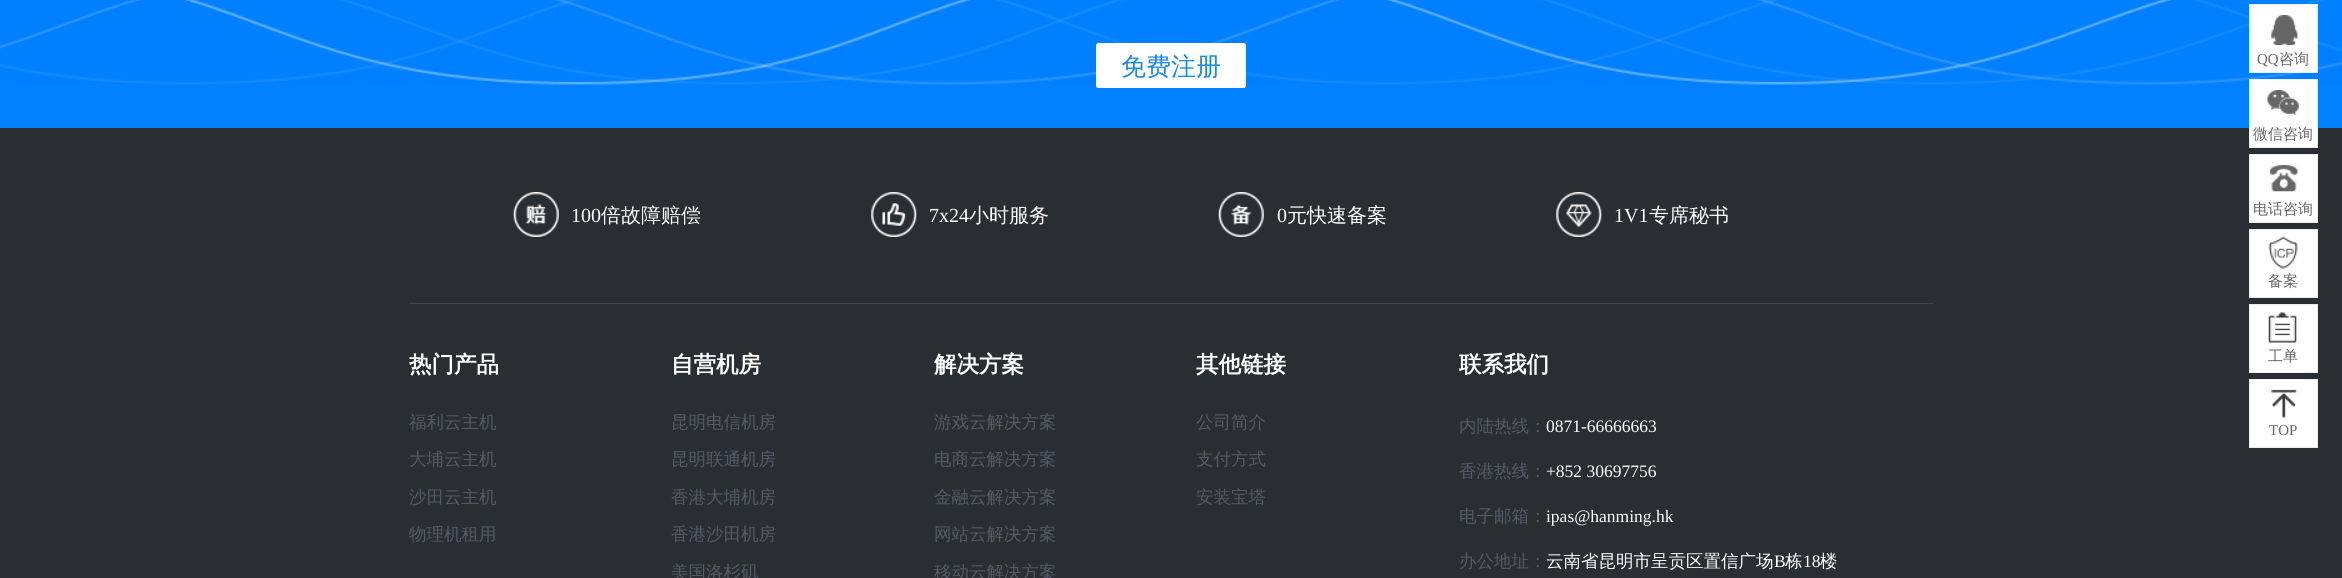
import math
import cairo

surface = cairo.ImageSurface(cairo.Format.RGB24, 2342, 578)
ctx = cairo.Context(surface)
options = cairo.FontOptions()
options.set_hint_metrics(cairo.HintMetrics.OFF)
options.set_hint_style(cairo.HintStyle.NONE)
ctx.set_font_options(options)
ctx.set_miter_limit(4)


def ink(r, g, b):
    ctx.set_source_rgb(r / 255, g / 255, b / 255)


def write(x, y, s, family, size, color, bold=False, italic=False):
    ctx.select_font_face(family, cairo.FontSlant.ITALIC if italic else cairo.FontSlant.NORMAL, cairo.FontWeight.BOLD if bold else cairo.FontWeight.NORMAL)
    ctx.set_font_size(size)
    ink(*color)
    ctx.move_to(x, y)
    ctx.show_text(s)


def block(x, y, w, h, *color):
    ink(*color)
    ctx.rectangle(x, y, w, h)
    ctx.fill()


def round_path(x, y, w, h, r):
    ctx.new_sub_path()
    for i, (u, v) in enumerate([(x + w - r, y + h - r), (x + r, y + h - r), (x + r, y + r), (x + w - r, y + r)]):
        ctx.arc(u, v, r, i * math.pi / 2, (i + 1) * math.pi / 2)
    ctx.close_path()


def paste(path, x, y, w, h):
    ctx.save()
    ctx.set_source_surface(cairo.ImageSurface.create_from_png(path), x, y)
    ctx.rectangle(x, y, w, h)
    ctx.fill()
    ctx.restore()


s1 = dict(family="WenQuanYi Zen Hei Medium", size=25, color=(24, 138, 224))
s2 = dict(family="Liberation Serif", size=15, color=(102, 102, 102))
s3 = dict(family="WenQuanYi Zen Hei Medium", size=15, color=(102, 102, 102))
s4 = dict(family="Liberation Serif", size=20, color=(255, 255, 255))
s5 = dict(family="WenQuanYi Zen Hei Medium", size=20, color=(255, 255, 255))
s6 = dict(family="WenQuanYi Zen Hei", size=22.5, color=(255, 255, 255), bold=True)
s7 = dict(family="WenQuanYi Zen Hei Medium", size=17.5, color=(82, 92, 102))
s8 = dict(family="Liberation Serif", size=17.5, color=(255, 255, 255))
s9 = dict(family="WenQuanYi Zen Hei Medium", size=17.5, color=(255, 255, 255))

ink(1, 128, 255)
ctx.paint()
paste("pic1.png", 0, 0, 2342, 85)
ink(255, 255, 255)
round_path(1096.5, 43.5, 149, 44, 2)
ctx.fill_preserve()
ctx.set_line_width(1)
ctx.stroke()
write(1121, 75, "免费注册", **s1)
block(2250, 5, 67, 67, 255, 255, 255)
paste("pic2.png", 2270, 15, 28, 30)
ctx.rectangle(2249.5, 4.5, 68, 68)
ink(238, 238, 238)
ctx.stroke()
write(2257, 64, "QQ", **s2)
write(2279, 64, "咨询", **s3)
block(0, 128, 2342, 450, 41, 46, 51)
block(2250, 80, 67, 67, 255, 255, 255)
paste("pic3.png", 2267, 90, 32, 25)
ctx.rectangle(2249.5, 79.5, 68, 68)
ink(238, 238, 238)
ctx.stroke()
write(2253, 139, "微信咨询", **s3)
block(2250, 155, 67, 67, 255, 255, 255)
paste("pic4.png", 2270, 165, 28, 27)
ctx.rectangle(2249.5, 154.5, 68, 68)
ink(238, 238, 238)
ctx.stroke()
write(2253, 214, "电话咨询", **s3)
ink(255, 255, 255)
ctx.rectangle(2249.5, 229.5, 68, 68)
ctx.fill_preserve()
ink(238, 238, 238)
ctx.stroke()
paste("pic5.png", 2268, 236, 30, 33)
write(2268, 286, "备案", **s3)
ink(255, 255, 255)
ctx.rectangle(2249.5, 304.5, 68, 68)
ctx.fill_preserve()
ink(238, 238, 238)
ctx.stroke()
paste("pic6.png", 2268, 312, 29, 31)
write(2268, 361, "工单", **s3)
ink(255, 255, 255)
ctx.rectangle(2249.5, 379.5, 68, 68)
ctx.fill_preserve()
ink(238, 238, 238)
ctx.stroke()
paste("pic7.png", 2271, 389, 26, 29)
write(2269, 435, "TOP", **s2)
block(409, 303, 1525, 1, 62, 67, 71)
paste("pic8.png", 513, 192, 46, 45)
write(571, 222, "100", **s4)
write(601, 222, "倍故障赔偿", **s5)
paste("pic9.png", 871, 192, 46, 45)
write(929, 222, "7x24", **s4)
write(969, 222, "小时服务", **s5)
paste("pic10.png", 1218, 192, 46, 45)
write(1277, 222, "0", **s4)
write(1287, 222, "元快速备案", **s5)
paste("pic11.png", 1556, 192, 46, 45)
write(1614, 222, "1V1", **s4)
write(1649, 222, "专席秘书", **s5)
write(409, 372, "热门产品", **s6)
write(409, 428, "福利云主机", **s7)
write(409, 465, "大埔云主机", **s7)
write(409, 503, "沙田云主机", **s7)
write(409, 540, "物理机租用", **s7)
write(671, 372, "自营机房", **s6)
write(671, 428, "昆明电信机房", **s7)
write(671, 465, "昆明联通机房", **s7)
write(671, 503, "香港大埔机房", **s7)
write(671, 540, "香港沙田机房", **s7)
write(671, 578, "美国洛杉矶", **s7)
write(934, 372, "解决方案", **s6)
write(934, 428, "游戏云解决方案", **s7)
write(934, 465, "电商云解决方案", **s7)
write(934, 503, "金融云解决方案", **s7)
write(934, 540, "网站云解决方案", **s7)
write(934, 578, "移动云解决方案", **s7)
write(1196, 372, "其他链接", **s6)
write(1196, 428, "公司简介", **s7)
write(1196, 465, "支付方式", **s7)
write(1196, 503, "安装宝塔", **s7)
write(1459, 372, "联系我们", **s6)
write(1459, 432, "内陆热线：", **s7)
write(1546, 432, "0871-66666663", **s8)
write(1459, 477, "香港热线：", **s7)
write(1546, 477, "+852 30697756", **s8)
write(1459, 522, "电子邮箱：", **s7)
write(1546, 522, "ipas@hanming.hk", **s8)
write(1459, 567, "办公地址：", **s7)
write(1546, 567, "云南省昆明市呈贡区置信广场", **s9)
write(1774, 567, "B", **s8)
write(1785, 567, "栋", **s9)
write(1803, 567, "18", **s8)
write(1820, 567, "楼", **s9)
surface.write_to_png("screenshot.png")
